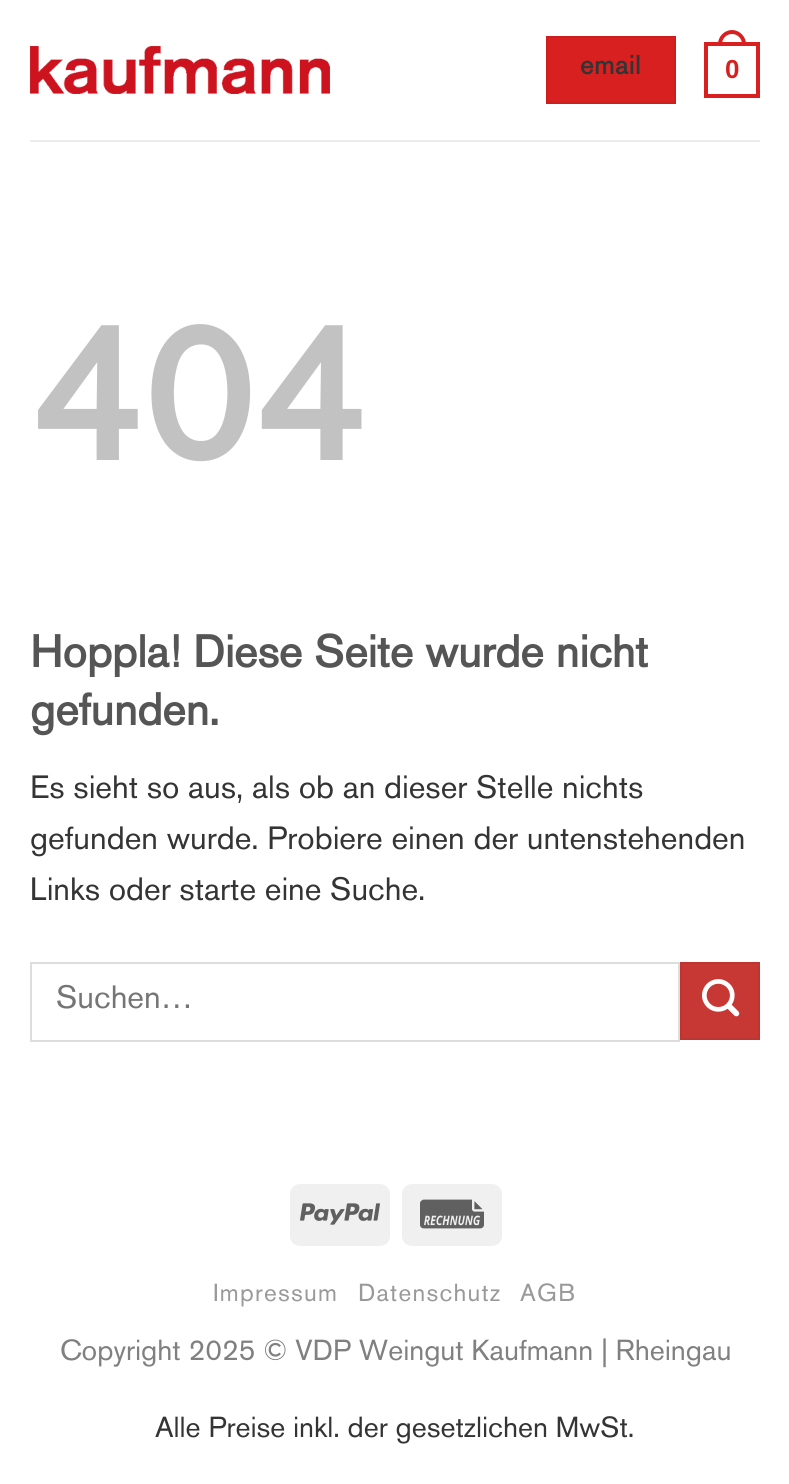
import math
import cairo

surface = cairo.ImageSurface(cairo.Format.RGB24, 789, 1484)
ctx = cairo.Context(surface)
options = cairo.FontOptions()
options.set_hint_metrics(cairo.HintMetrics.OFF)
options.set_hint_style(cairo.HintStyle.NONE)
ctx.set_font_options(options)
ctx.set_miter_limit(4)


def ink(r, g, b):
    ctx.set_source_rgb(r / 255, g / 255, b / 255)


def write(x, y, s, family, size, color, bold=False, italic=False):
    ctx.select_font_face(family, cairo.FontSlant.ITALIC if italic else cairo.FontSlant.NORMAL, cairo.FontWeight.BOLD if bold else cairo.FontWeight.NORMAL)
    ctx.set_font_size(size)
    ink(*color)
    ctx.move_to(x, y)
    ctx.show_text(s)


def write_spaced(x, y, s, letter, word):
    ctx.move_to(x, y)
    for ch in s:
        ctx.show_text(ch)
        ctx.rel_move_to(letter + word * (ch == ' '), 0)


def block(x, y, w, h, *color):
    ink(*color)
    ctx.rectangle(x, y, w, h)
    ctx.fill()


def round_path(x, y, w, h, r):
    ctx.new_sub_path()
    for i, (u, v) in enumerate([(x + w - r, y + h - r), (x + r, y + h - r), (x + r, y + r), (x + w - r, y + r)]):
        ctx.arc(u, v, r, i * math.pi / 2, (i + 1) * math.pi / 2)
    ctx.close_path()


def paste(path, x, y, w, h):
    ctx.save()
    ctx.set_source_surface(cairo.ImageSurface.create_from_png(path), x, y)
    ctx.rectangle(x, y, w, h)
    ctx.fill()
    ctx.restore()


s1 = dict(family="Liberation Sans", size=26, color=(216, 32, 32), bold=True)
s2 = dict(family="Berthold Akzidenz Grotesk", size=192, color=(194, 194, 194), bold=True)
s3 = dict(family="Berthold Akzidenz Grotesk", size=44.75, color=(85, 85, 85), bold=True)
s4 = dict(family="Berthold Akzidenz Grotesk", size=32, color=(52, 52, 52))
s5 = dict(family="Berthold Akzidenz Grotesk", size=32, color=(117, 117, 117))
s6 = dict(family="Berthold Akzidenz Grotesk", size=28.8, color=(128, 128, 128))
s7 = dict(family="Berthold Akzidenz Grotesk", size=28.8, color=(52, 52, 52))

ink(255, 255, 255)
ctx.paint()
paste("pic1.png", 30, 46, 300, 48)
ink(216, 32, 32)
ctx.rectangle(547, 37, 128, 66)
ctx.fill_preserve()
ink(205, 30, 30)
ctx.stroke()
ctx.select_font_face("Berthold Akzidenz Grotesk", cairo.FontSlant.NORMAL, cairo.FontWeight.BOLD)
ctx.set_font_size(26)
ink(52, 52, 52)
write_spaced(580, 74, "email", 0.75, 0)
ctx.rectangle(706, 44, 52, 52)
ink(216, 32, 32)
ctx.set_line_width(4)
ctx.stroke()
ctx.set_fill_rule(cairo.FillRule.EVEN_ODD)
ctx.new_path()
ctx.move_to(732, 30)
ctx.curve_to(739.5, 30, 746, 36.5, 746, 44)
ctx.line_to(746, 46)
ctx.line_to(718, 46)
ctx.line_to(718, 44)
ctx.curve_to(718, 36.5, 724.5, 30, 732, 30)
ctx.close_path()
ctx.move_to(732, 34)
ctx.curve_to(737.5, 34, 742, 38.5, 742, 44)
ctx.line_to(742, 46)
ctx.line_to(722, 46)
ctx.line_to(722, 44)
ctx.curve_to(722, 38.5, 726.5, 34, 732, 34)
ctx.close_path()
ctx.fill()
write(725, 78, "0", **s1)
block(30, 140, 730, 2, 235, 235, 235)
write(30, 460, "404", **s2)
write(30, 667, "Hoppla! Diese Seite wurde nicht", **s3)
write(30, 725, "gefunden.", **s3)
write(30, 798, "Es sieht so aus, als ob an dieser Stelle nichts", **s4)
write(30, 849, "gefunden wurde. Probiere einen der untenstehenden", **s4)
write(30, 900, "Links oder starte eine Suche.", **s4)
ctx.rectangle(31, 963, 648, 78)
ink(221, 221, 221)
ctx.set_line_width(2)
ctx.stroke()
write(56, 1008, "Suchen…", **s5)
ink(199, 55, 52)
ctx.rectangle(681, 963, 78, 76)
ctx.fill_preserve()
ink(189, 52, 49)
ctx.stroke()
paste("pic2.png", 702, 979, 38, 38)
ink(240, 240, 240)
round_path(290, 1184, 100, 62, 10)
ctx.fill()
paste("pic3.png", 300, 1203, 80, 22)
round_path(402, 1184, 100, 62, 10)
ctx.fill()
paste("pic4.png", 420, 1199, 64, 30)
ctx.set_font_size(24.5)
ink(153, 153, 153)
write_spaced(213, 1301, "Impressum", 1.25, 0)
write_spaced(358, 1301, "Datenschutz", 1.25, 0)
write_spaced(520, 1301, "AGB", 1.25, 0)
write(60, 1360, "Copyright 2025 © VDP Weingut Kaufmann | Rheingau", **s6)
write(155, 1437, "Alle Preise inkl. der gesetzlichen MwSt.", **s7)
surface.write_to_png("screenshot.png")
